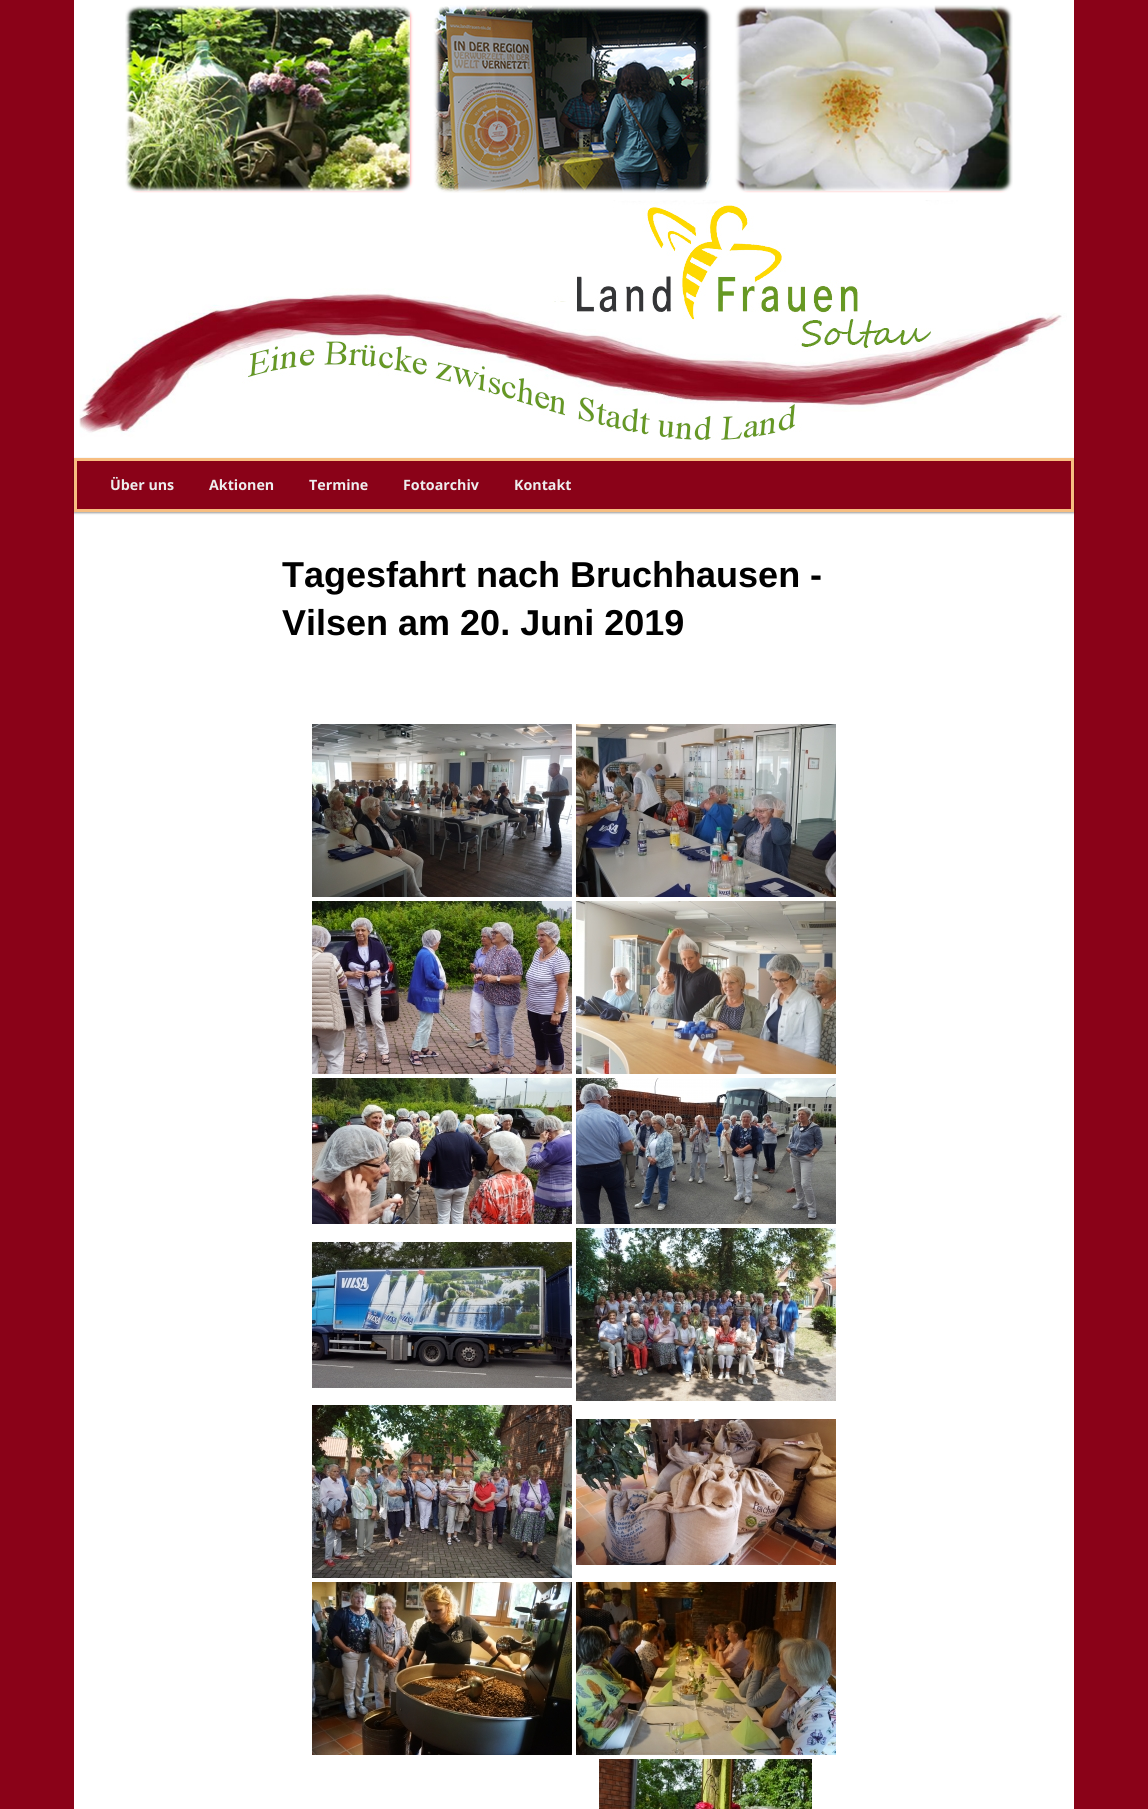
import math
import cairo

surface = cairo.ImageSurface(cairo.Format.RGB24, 1148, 1809)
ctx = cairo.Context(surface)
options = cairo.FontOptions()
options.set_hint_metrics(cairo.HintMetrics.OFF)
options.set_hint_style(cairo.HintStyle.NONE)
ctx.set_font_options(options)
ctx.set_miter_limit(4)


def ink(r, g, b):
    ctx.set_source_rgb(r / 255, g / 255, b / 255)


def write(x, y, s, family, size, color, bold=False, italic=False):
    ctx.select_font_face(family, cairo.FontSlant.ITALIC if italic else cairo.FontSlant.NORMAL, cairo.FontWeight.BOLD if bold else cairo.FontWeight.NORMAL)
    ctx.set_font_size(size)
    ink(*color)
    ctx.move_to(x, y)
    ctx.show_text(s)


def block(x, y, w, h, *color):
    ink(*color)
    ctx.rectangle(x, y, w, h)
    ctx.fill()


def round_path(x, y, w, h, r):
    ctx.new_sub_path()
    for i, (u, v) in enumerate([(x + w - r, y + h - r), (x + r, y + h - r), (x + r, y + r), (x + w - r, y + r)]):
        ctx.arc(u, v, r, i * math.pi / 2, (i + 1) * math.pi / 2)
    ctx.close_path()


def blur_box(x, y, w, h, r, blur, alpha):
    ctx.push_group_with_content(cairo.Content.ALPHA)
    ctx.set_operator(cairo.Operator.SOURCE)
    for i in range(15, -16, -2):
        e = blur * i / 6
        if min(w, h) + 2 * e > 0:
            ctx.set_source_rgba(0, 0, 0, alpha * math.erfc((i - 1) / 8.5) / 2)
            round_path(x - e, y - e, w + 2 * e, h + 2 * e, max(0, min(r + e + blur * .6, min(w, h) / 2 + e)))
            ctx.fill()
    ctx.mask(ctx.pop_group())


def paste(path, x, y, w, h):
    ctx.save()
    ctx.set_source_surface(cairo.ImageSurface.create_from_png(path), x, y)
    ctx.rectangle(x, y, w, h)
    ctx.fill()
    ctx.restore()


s1 = dict(family="Open Sans", size=14.25, color=(238, 238, 238), bold=True)
s2 = dict(family="Liberation Sans", size=36, color=(0, 0, 0), bold=True)

ink(138, 2, 24)
ctx.paint()
block(74, 0, 1000, 1809, 255, 255, 255)
paste("pic1.png", 125, 5, 888, 188)
paste("pic2.png", 79, 200, 988, 240)
ink(0, 0, 0)
blur_box(74, 459, 1000, 54, 0, 1, 0.4)
ink(138, 2, 24)
ctx.rectangle(75.5, 459.5, 997, 51)
ctx.fill_preserve()
ink(247, 190, 129)
ctx.set_line_width(3)
ctx.stroke()
write(110, 490, "Über uns", **s1)
write(209, 490, "Aktionen", **s1)
write(309, 490, "Termine", **s1)
write(403, 490, "Fotoarchiv", **s1)
write(514, 490, "Kontakt", **s1)
write(282, 587, "Tagesfahrt nach Bruchhausen -", **s2)
write(282, 635, "Vilsen am 20. Juni 2019", **s2)
paste("pic3.png", 312, 724, 260, 173)
paste("pic4.png", 576, 724, 260, 173)
paste("pic5.png", 312, 901, 260, 173)
paste("pic6.png", 576, 901, 260, 173)
paste("pic7.png", 312, 1078, 260, 146)
paste("pic8.png", 576, 1078, 260, 146)
paste("pic9.png", 312, 1242, 260, 146)
paste("pic10.png", 576, 1228, 260, 173)
paste("pic11.png", 312, 1405, 260, 173)
paste("pic12.png", 576, 1419, 260, 146)
paste("pic13.png", 312, 1582, 260, 173)
paste("pic14.png", 576, 1582, 260, 173)
paste("pic15.png", 599, 1759, 213, 50)
surface.write_to_png("screenshot.png")
